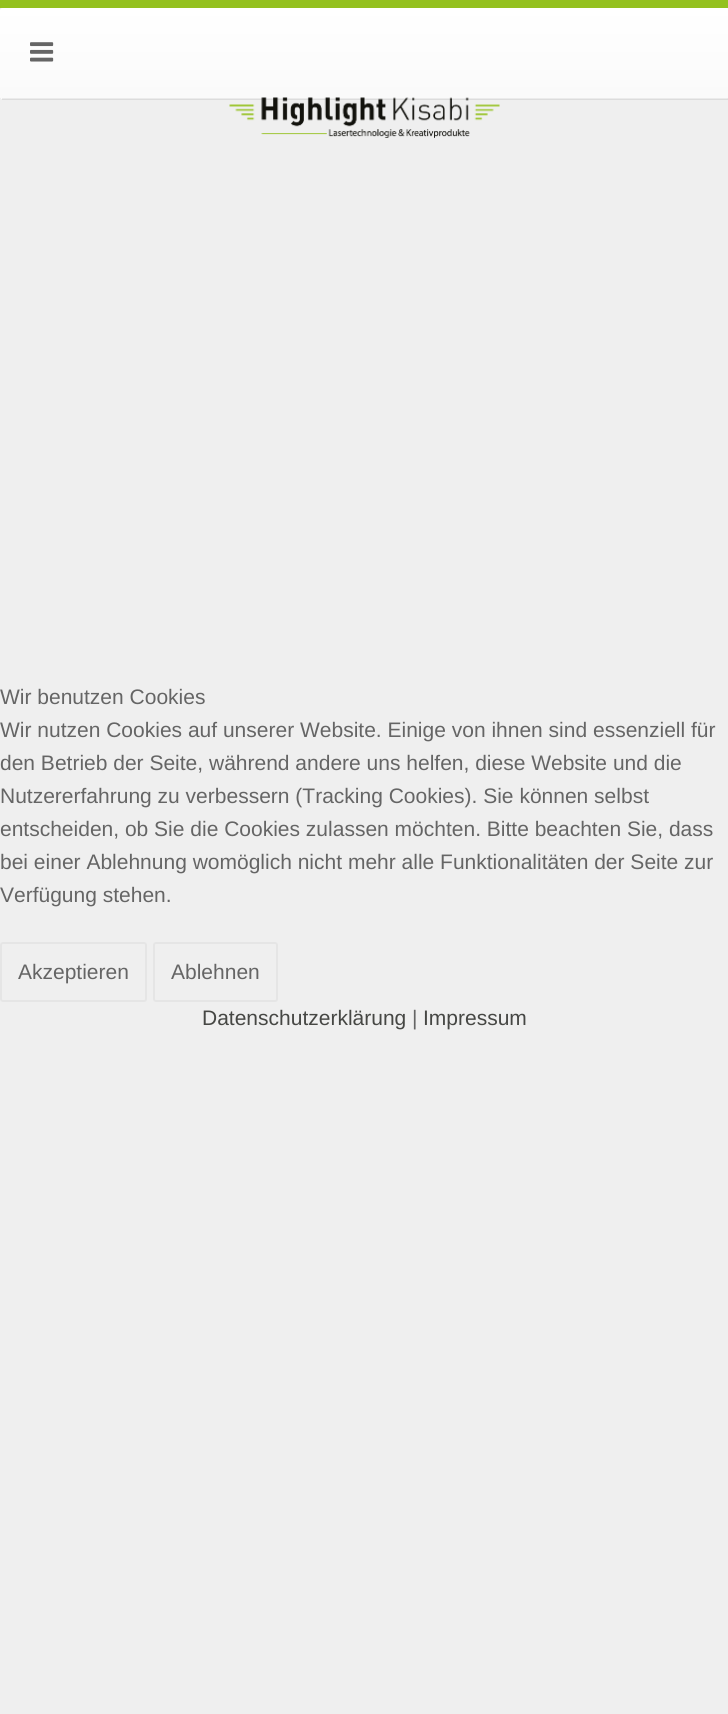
import math
import cairo

surface = cairo.ImageSurface(cairo.Format.RGB24, 728, 1714)
ctx = cairo.Context(surface)
options = cairo.FontOptions()
options.set_hint_metrics(cairo.HintMetrics.OFF)
options.set_hint_style(cairo.HintStyle.NONE)
ctx.set_font_options(options)
ctx.set_miter_limit(4)


def ink(r, g, b):
    ctx.set_source_rgb(r / 255, g / 255, b / 255)


def write(x, y, s, family, size, color, bold=False, italic=False):
    ctx.select_font_face(family, cairo.FontSlant.ITALIC if italic else cairo.FontSlant.NORMAL, cairo.FontWeight.BOLD if bold else cairo.FontWeight.NORMAL)
    ctx.set_font_size(size)
    ink(*color)
    ctx.move_to(x, y)
    ctx.show_text(s)


def block(x, y, w, h, *color):
    ink(*color)
    ctx.rectangle(x, y, w, h)
    ctx.fill()


def round_path(x, y, w, h, r):
    ctx.new_sub_path()
    for i, (u, v) in enumerate([(x + w - r, y + h - r), (x + r, y + h - r), (x + r, y + r), (x + w - r, y + r)]):
        ctx.arc(u, v, r, i * math.pi / 2, (i + 1) * math.pi / 2)
    ctx.close_path()


def paste(path, x, y, w, h):
    ctx.save()
    ctx.set_source_surface(cairo.ImageSurface.create_from_png(path), x, y)
    ctx.rectangle(x, y, w, h)
    ctx.fill()
    ctx.restore()


s1 = dict(family="Liberation Sans", size=21, color=(101, 101, 101))
s2 = dict(family="Liberation Sans", size=21, color=(70, 71, 68))

ink(239, 239, 239)
ctx.paint()
block(0, 0, 728, 8, 148, 193, 31)
ink(255, 255, 255)
round_path(0, 8, 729, 91, 3)
ctx.fill()
ctx.save()
round_path(0, 8, 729, 91, 3)
ctx.clip()
gradient = cairo.LinearGradient(365, 7.5, 365, 98)
gradient.add_color_stop_rgba(0, 1, 1, 1, 1)
gradient.add_color_stop_rgba(1, 0.98, 0.98, 0.98, 1)
ctx.set_source(gradient)
ctx.new_path()
ctx.move_to(3, 8)
ctx.line_to(726, 8)
ctx.curve_to(727.5, 8, 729, 9.5, 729, 11)
ctx.line_to(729, 98)
ctx.line_to(0, 98)
ctx.line_to(0, 11)
ctx.curve_to(0, 9.5, 1.5, 8, 3, 8)
ctx.close_path()
ctx.fill()
gradient = cairo.LinearGradient(365, 97, 365, 188)
gradient.add_color_stop_rgba(0, 1, 1, 1, 1)
gradient.add_color_stop_rgba(1, 0.98, 0.98, 0.98, 1)
ctx.set_source(gradient)
ctx.rectangle(0, 98, 728, 1)
ctx.fill()
ctx.restore()
ctx.set_source_rgba(0, 0, 0, 0.08)
ctx.rectangle(2, 98, 726, 2)
ctx.fill()
paste("pic1.png", 30, 42, 24, 20)
paste("pic2.png", 229, 97, 271, 41)
write(0, 704, "Wir benutzen Cookies", **s1)
write(0, 737, "Wir nutzen Cookies auf unserer Website. Einige von ihnen sind essenziell für", **s1)
write(0, 770, "den Betrieb der Seite, während andere uns helfen, diese Website und die", **s1)
write(0, 803, "Nutzererfahrung zu verbessern (Tracking Cookies). Sie können selbst", **s1)
write(0, 836, "entscheiden, ob Sie die Cookies zulassen möchten. Bitte beachten Sie, dass", **s1)
write(0, 869, "bei einer Ablehnung womöglich nicht mehr alle Funktionalitäten der Seite zur", **s1)
write(0, 902, "Verfügung stehen.", **s1)
round_path(1, 943, 145, 58, 2)
ink(229, 229, 229)
ctx.stroke()
write(18, 979, "Akzeptieren", **s1)
round_path(154, 943, 123, 58, 2)
ink(229, 229, 229)
ctx.stroke()
write(171, 979, "Ablehnen", **s1)
write(202, 1025, "Datenschutzerklärung", **s2)
write(412, 1025, "|", **s1)
write(423, 1025, "Impressum", **s2)
surface.write_to_png("screenshot.png")
